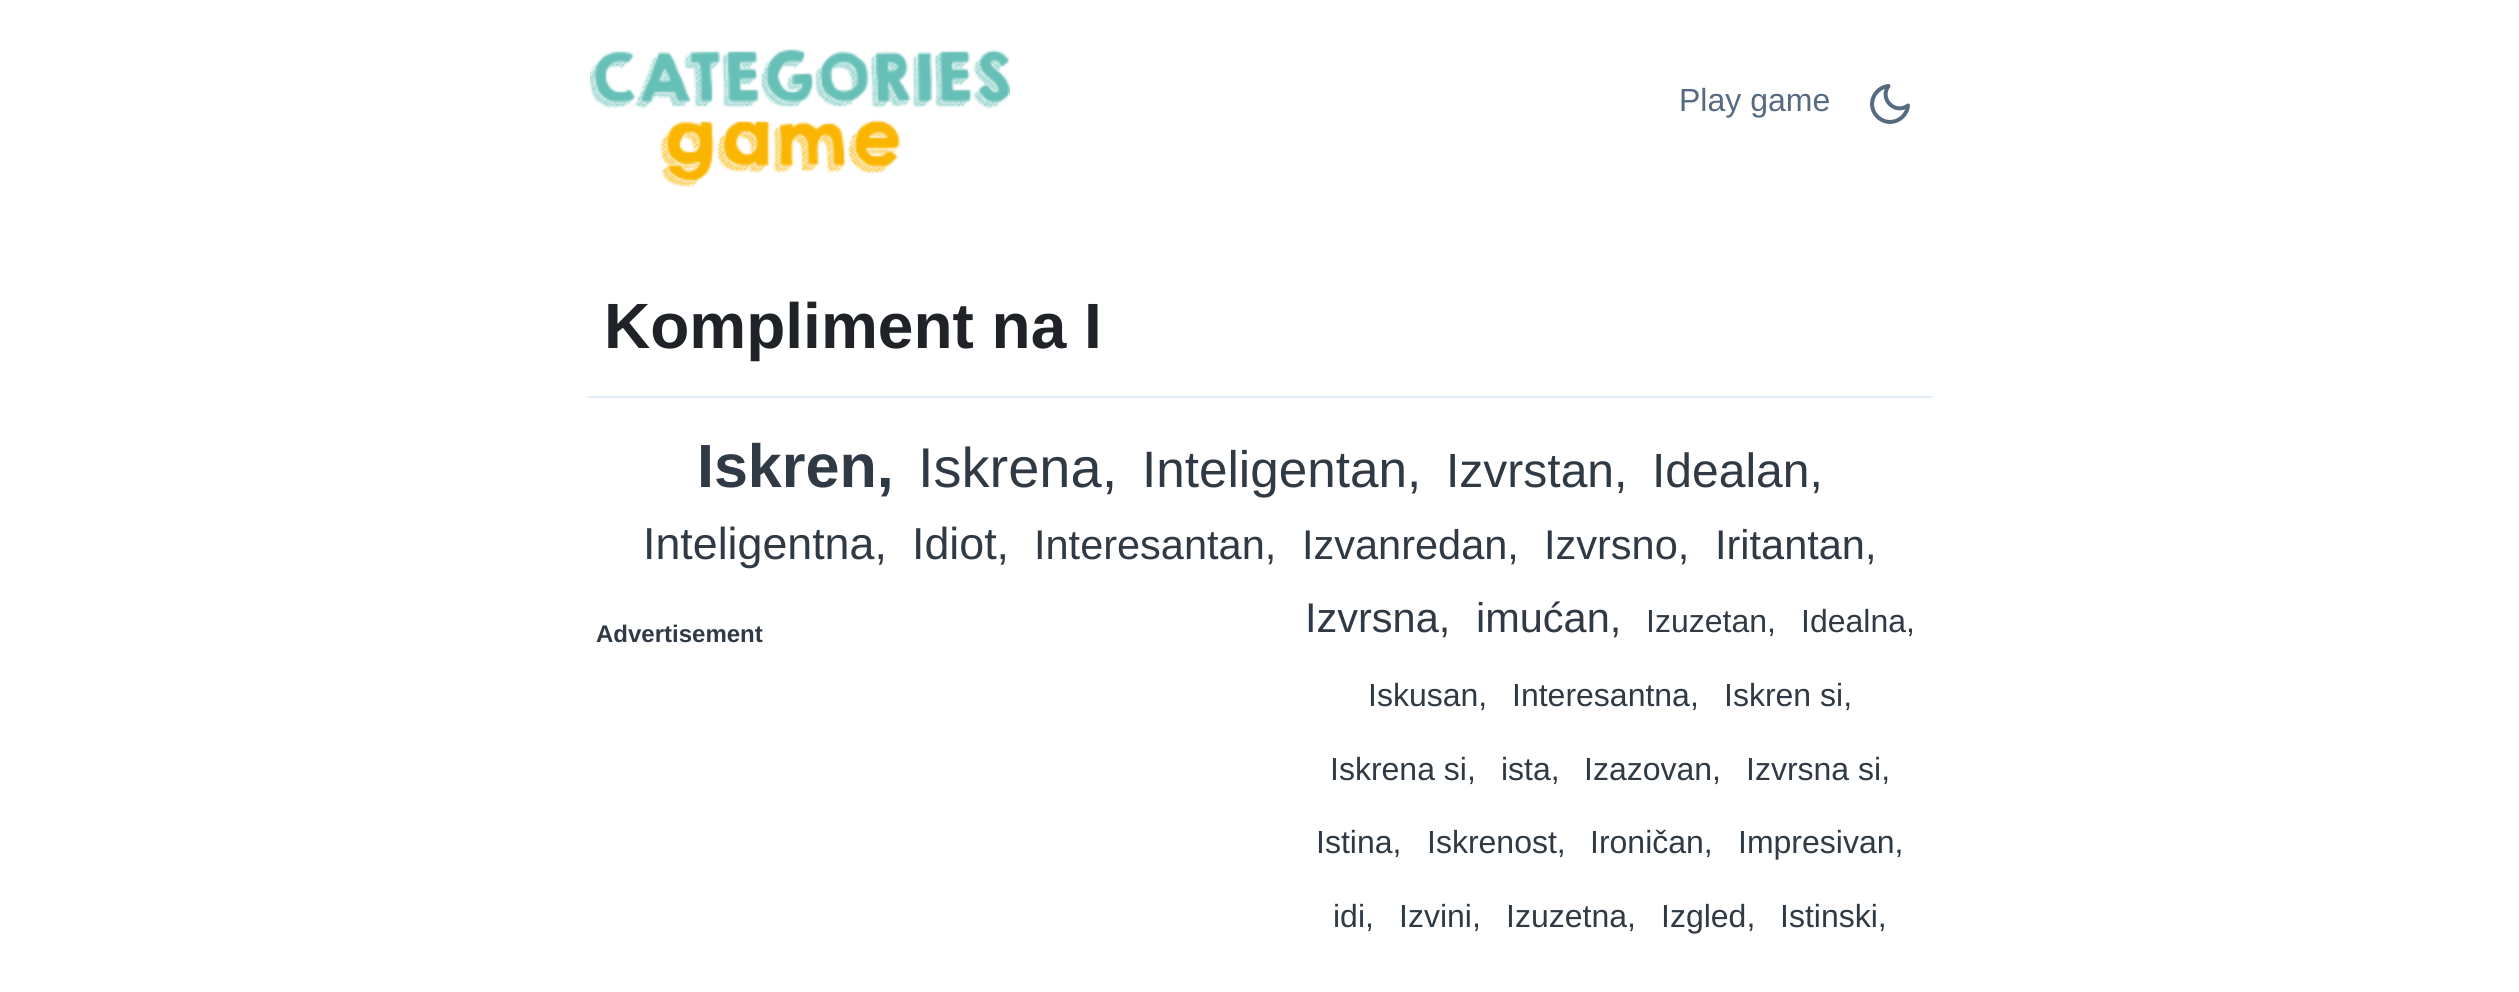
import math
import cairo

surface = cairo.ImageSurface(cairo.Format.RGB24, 2519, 992)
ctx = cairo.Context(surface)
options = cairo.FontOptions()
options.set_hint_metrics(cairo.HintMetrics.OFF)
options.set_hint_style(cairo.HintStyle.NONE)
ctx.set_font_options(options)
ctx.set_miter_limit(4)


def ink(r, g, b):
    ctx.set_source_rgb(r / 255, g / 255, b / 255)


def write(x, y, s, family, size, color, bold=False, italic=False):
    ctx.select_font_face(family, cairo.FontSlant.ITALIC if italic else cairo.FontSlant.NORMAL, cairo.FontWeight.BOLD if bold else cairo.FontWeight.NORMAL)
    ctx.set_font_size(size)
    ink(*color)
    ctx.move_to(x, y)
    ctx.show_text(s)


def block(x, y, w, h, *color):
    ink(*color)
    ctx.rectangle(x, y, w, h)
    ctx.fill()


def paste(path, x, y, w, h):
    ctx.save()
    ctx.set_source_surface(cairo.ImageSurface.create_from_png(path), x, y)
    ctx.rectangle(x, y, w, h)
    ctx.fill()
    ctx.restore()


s1 = dict(family="Liberation Sans", size=32, color=(86, 106, 129))
s2 = dict(family="Liberation Sans", size=64, color=(31, 35, 40), bold=True)
s3 = dict(family="Liberation Sans", size=61, color=(48, 58, 69), bold=True)
s4 = dict(family="Liberation Sans", size=56, color=(48, 58, 69))
s5 = dict(family="Liberation Sans", size=51.25, color=(48, 58, 69))
s6 = dict(family="Liberation Sans", size=48, color=(48, 58, 69))
s7 = dict(family="Liberation Sans", size=44.75, color=(48, 58, 69))
s8 = dict(family="Liberation Sans", size=41.5, color=(48, 58, 69))
s9 = dict(family="Liberation Sans", size=24, color=(48, 58, 69), bold=True)
s10 = dict(family="Liberation Sans", size=32, color=(48, 58, 69))

ink(255, 255, 255)
ctx.paint()
paste("pic1.png", 590, 49, 420, 138)
write(1679, 111, "Play game", **s1)
ctx.new_path()
ctx.move_to(1908, 105.5)
ctx.curve_to(1907, 115, 1899, 122, 1889.5, 122)
ctx.curve_to(1880, 121.5, 1872.5, 114, 1872, 104.5)
ctx.curve_to(1872, 95, 1879, 87, 1888.5, 86)
ctx.curve_to(1879, 99, 1895, 115, 1908, 105.5)
ctx.close_path()
ctx.set_line_width(4)
ctx.set_line_cap(cairo.LineCap.ROUND)
ctx.set_line_join(cairo.LineJoin.ROUND)
ctx.stroke()
write(604, 348, "Kompliment na I", **s2)
block(588, 396, 1344, 2, 226, 236, 248)
write(697, 487, "Iskren,", **s3)
write(918, 487, "Iskrena,", **s4)
write(1142, 487, "Inteligentan,", **s5)
write(1446, 487, "Izvrstan,", **s6)
write(1652, 487, "Idealan,", **s6)
write(643, 559, "Inteligentna,", **s7)
write(912, 559, "Idiot,", **s7)
write(1034, 559, "Interesantan,", **s8)
write(1302, 559, "Izvanredan,", **s8)
write(1544, 559, "Izvrsno,", **s8)
write(1715, 559, "Iritantan,", **s8)
write(596, 642, "Advertisement", **s9)
write(1305, 632, "Izvrsna,", **s8)
write(1476, 632, "imućan,", **s8)
write(1646, 632, "Izuzetan,", **s10)
write(1801, 632, "Idealna,", **s10)
write(1368, 706, "Iskusan,", **s10)
write(1512, 706, "Interesantna,", **s10)
write(1724, 706, "Iskren si,", **s10)
write(1330, 780, "Iskrena si,", **s10)
write(1501, 780, "ista,", **s10)
write(1584, 780, "Izazovan,", **s10)
write(1746, 780, "Izvrsna si,", **s10)
write(1316, 853, "Istina,", **s10)
write(1427, 853, "Iskrenost,", **s10)
write(1590, 853, "Ironičan,", **s10)
write(1738, 853, "Impresivan,", **s10)
write(1333, 927, "idi,", **s10)
write(1399, 927, "Izvini,", **s10)
write(1506, 927, "Izuzetna,", **s10)
write(1661, 927, "Izgled,", **s10)
write(1780, 927, "Istinski,", **s10)
surface.write_to_png("screenshot.png")
